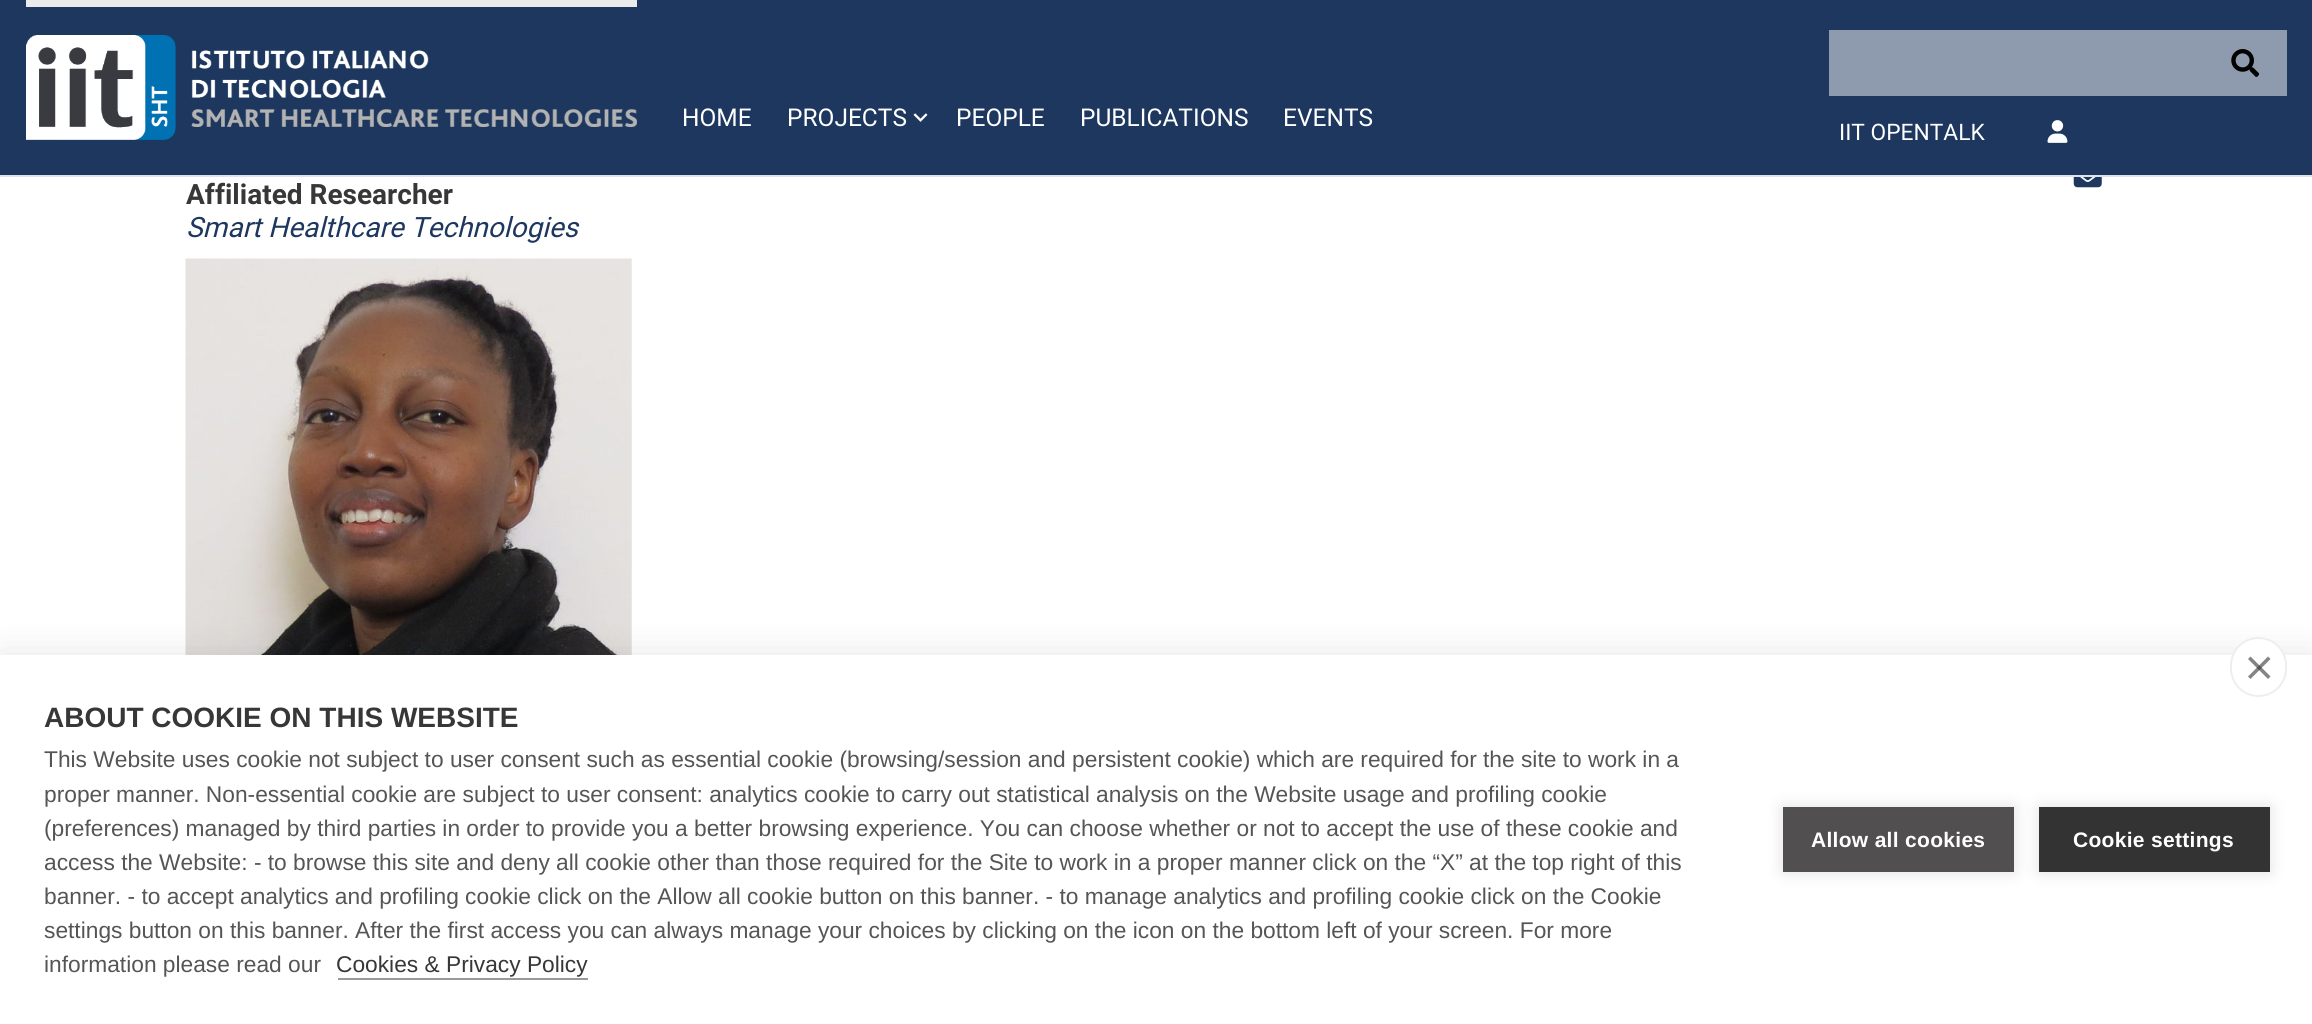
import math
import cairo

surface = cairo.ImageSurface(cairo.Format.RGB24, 2312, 1024)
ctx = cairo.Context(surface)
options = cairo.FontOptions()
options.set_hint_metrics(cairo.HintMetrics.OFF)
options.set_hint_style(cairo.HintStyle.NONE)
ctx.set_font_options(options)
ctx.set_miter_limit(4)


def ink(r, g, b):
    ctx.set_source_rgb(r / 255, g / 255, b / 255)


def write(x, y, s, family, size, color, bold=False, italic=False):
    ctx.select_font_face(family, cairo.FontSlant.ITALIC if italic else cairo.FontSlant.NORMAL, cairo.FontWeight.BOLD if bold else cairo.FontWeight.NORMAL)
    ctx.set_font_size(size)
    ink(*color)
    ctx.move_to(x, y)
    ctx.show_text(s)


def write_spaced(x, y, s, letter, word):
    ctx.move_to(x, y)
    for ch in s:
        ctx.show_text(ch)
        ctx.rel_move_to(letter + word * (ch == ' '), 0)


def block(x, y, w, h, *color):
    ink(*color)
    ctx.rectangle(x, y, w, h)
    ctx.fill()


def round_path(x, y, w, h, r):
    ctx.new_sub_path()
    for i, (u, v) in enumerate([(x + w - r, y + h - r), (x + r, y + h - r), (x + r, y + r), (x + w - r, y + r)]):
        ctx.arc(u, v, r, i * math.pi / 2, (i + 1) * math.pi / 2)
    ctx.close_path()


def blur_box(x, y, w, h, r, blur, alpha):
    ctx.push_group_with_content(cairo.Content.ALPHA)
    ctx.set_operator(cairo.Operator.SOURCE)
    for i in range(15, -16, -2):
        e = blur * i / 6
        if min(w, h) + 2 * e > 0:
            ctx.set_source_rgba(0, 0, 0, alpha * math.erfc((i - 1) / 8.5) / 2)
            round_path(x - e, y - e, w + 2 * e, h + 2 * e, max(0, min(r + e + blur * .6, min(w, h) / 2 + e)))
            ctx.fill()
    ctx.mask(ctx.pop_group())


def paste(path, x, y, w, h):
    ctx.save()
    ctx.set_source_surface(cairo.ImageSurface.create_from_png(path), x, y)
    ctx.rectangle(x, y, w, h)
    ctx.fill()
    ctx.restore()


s1 = dict(family="Roboto", size=24.5, color=(255, 255, 255))
s2 = dict(family="Roboto", size=22.75, color=(255, 255, 255))
s3 = dict(family="Roboto", size=28, color=(56, 55, 55), bold=True)
s4 = dict(family="Roboto", size=28, color=(29, 55, 95), italic=True)
s5 = dict(family="Liberation Sans", size=28, color=(56, 55, 55), bold=True)
s6 = dict(family="Liberation Sans", size=22.75, color=(85, 85, 85))
s7 = dict(family="Liberation Sans", size=22.75, color=(56, 55, 55))

ink(255, 255, 255)
ctx.paint()
block(0, 0, 2312, 175, 29, 55, 95)
block(0, 175, 2312, 2, 222, 226, 239)
block(26, 0, 611, 7, 235, 235, 235)
paste("pic1.png", 26, 35, 611, 105)
write(682, 126, "HOME", **s1)
write(787, 126, "PROJECTS", **s1)
paste("pic2.png", 913, 113, 15, 9)
write(956, 126, "PEOPLE", **s1)
write(1080, 126, "PUBLICATIONS", **s1)
write(1283, 126, "EVENTS", **s1)
block(1829, 30, 458, 66, 142, 155, 175)
paste("pic3.png", 2231, 49, 28, 28)
write(1839, 140, "IIT OPENTALK", **s2)
paste("pic4.png", 2047, 120, 21, 23)
write(186, 204, "Affiliated Researcher", **s3)
write(186, 237, "Smart Healthcare Technologies", **s4)
paste("pic5.png", 2073, 177, 29, 11)
paste("pic6.png", 185, 258, 447, 397)
ink(0, 0, 0)
blur_box(0, 655, 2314, 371, 0, 17.5, 0.1)
block(0, 655, 2312, 369, 255, 255, 255)
round_path(2231, 638, 55, 58, 27.5)
ctx.fill_preserve()
ink(238, 238, 238)
ctx.stroke()
ink(133, 133, 133)
ctx.new_path()
ctx.move_to(2248, 676.5)
ctx.line_to(2268, 656.5)
ctx.line_to(2270.5, 659)
ctx.line_to(2250.5, 679)
ctx.close_path()
ctx.fill()
ctx.set_source_rgba(0.2, 0.2, 0.2, 0.6)
ctx.new_path()
ctx.move_to(2250.5, 656.5)
ctx.line_to(2270.5, 676.5)
ctx.line_to(2268, 679)
ctx.line_to(2248, 659)
ctx.close_path()
ctx.fill()
write(44, 727, "ABOUT COOKIE ON THIS WEBSITE", **s5)
write(44, 767, "This Website uses cookie not subject to user consent such as essential cookie (browsing/session and persistent cookie) which are required for the site to work in a", **s6)
write(44, 802, "proper manner. Non-essential cookie are subject to user consent: analytics cookie to carry out statistical analysis on the Website usage and profiling cookie", **s6)
write(44, 836, "(preferences) managed by third parties in order to provide you a better browsing experience. You can choose whether or not to accept the use of these cookie and", **s6)
write(44, 870, "access the Website: - to browse this site and deny all cookie other than those required for the Site to work in a proper manner click on the “X” at the top right of this", **s6)
write(44, 904, "banner. - to accept analytics and profiling cookie click on the Allow all cookie button on this banner. - to manage analytics and profiling cookie click on the Cookie", **s6)
write(44, 938, "settings button on this banner. After the first access you can always manage your choices by clicking on the icon on the bottom left of your screen. For more", **s6)
write(44, 972, "information please read our", **s6)
write(336, 972, "Cookies & Privacy Policy", **s7)
block(338, 978, 250, 2, 153, 153, 153)
ink(0, 0, 0)
blur_box(1783, 807, 231, 65, 0, 9, 0.12)
block(1783, 807, 231, 65, 82, 79, 80)
ctx.select_font_face("Liberation Sans", cairo.FontSlant.NORMAL, cairo.FontWeight.BOLD)
ctx.set_font_size(21)
ink(255, 255, 255)
write_spaced(1811, 847, "Allow all cookies", 0.3, 0)
ink(0, 0, 0)
blur_box(2039, 807, 231, 65, 0, 9, 0.12)
block(2039, 807, 231, 65, 51, 51, 51)
ink(255, 255, 255)
write_spaced(2073, 847, "Cookie settings", 0.3, 0)
surface.write_to_png("screenshot.png")
